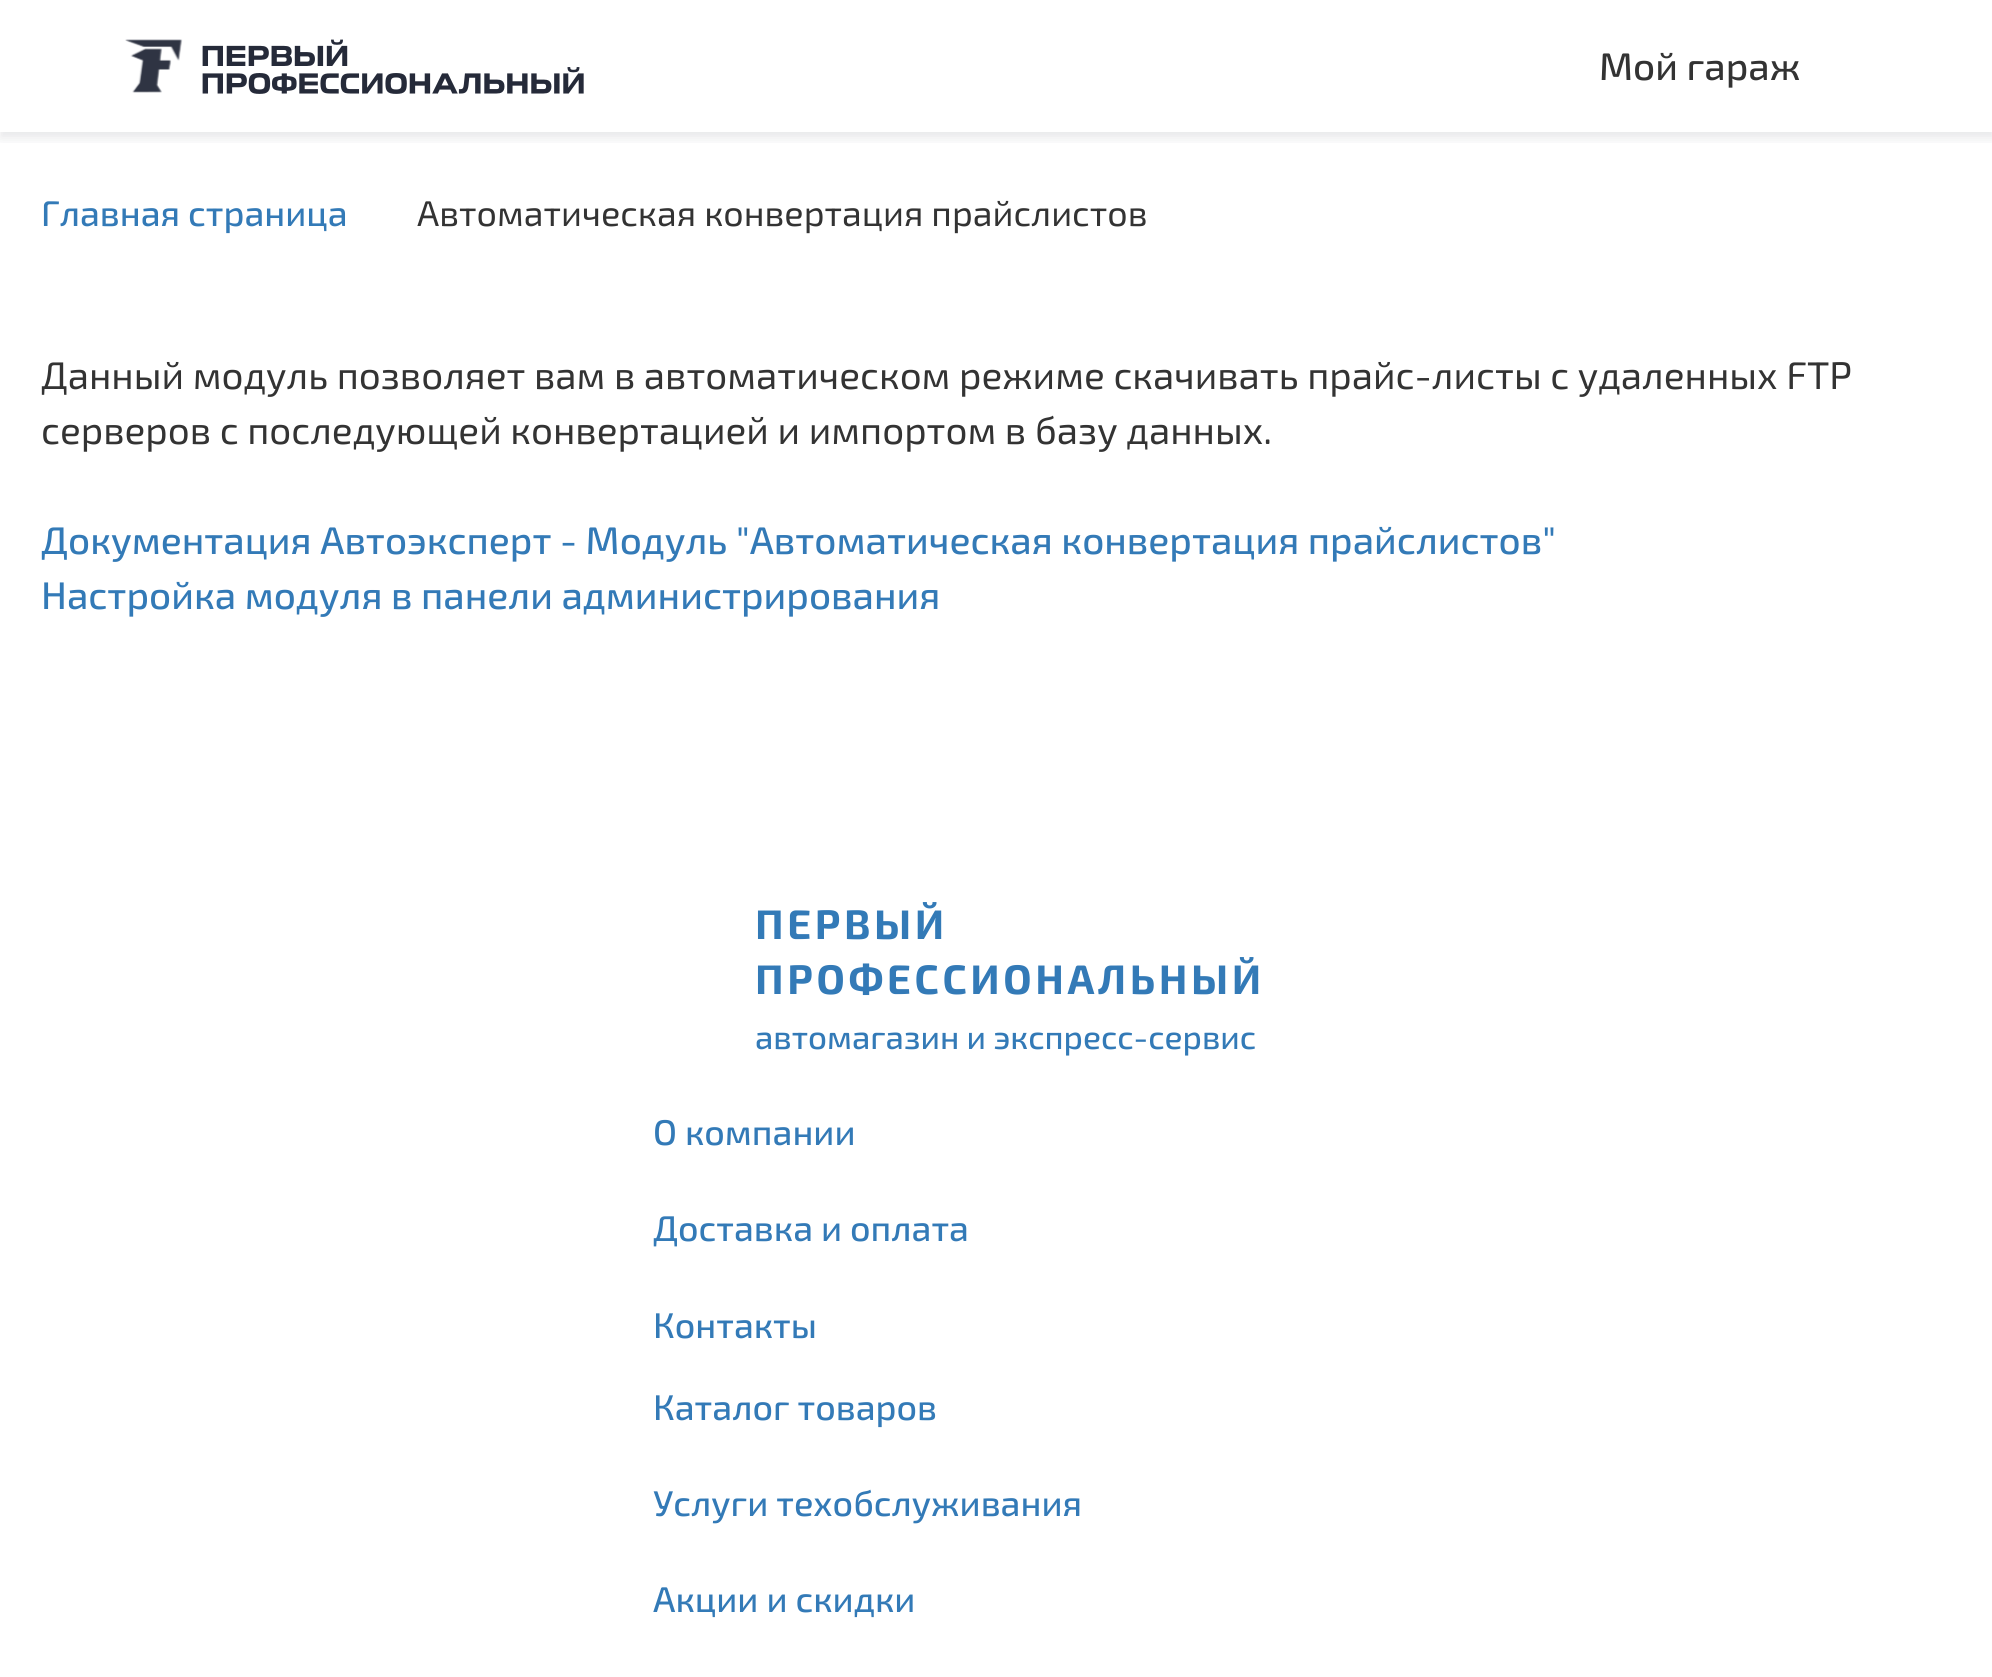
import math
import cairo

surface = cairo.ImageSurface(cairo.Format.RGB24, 1992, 1677)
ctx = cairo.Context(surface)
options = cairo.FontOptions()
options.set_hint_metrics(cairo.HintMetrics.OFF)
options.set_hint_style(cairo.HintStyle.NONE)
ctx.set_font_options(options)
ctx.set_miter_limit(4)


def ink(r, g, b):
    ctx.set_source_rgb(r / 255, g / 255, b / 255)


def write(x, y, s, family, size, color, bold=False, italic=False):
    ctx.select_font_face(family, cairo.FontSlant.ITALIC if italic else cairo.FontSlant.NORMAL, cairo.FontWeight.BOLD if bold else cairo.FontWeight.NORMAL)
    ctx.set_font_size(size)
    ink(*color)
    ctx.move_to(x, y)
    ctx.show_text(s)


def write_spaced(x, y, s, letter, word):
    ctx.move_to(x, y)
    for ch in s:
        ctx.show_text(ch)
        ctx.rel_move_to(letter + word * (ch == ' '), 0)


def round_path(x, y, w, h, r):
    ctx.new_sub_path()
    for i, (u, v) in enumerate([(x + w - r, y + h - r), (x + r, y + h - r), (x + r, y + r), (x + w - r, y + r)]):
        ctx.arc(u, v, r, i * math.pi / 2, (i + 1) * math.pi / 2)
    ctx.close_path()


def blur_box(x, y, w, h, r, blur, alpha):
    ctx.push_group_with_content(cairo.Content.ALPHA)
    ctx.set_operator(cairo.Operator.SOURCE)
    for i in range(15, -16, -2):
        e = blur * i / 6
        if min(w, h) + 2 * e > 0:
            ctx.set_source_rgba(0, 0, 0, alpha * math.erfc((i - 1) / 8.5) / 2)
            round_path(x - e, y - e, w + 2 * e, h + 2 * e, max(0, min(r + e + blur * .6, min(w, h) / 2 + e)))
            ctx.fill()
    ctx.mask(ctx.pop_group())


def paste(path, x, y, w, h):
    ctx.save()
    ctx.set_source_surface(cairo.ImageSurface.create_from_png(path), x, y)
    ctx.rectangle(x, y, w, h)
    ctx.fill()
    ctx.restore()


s1 = dict(family="Exo 2 Medium", size=38.5, color=(51, 51, 51))
s2 = dict(family="Exo 2 Medium", size=35.75, color=(51, 122, 183))
s3 = dict(family="Exo 2", size=35.75, color=(51, 51, 51))
s4 = dict(family="Exo 2", size=38.5, color=(51, 51, 51))
s5 = dict(family="Exo 2 Medium", size=38.5, color=(51, 122, 183))
s6 = dict(family="Exo 2 Medium", size=33, color=(51, 122, 183))

ink(255, 255, 255)
ctx.paint()
ctx.save()
ctx.rectangle(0, 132, 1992, 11)
ctx.clip()
ink(13, 20, 38)
blur_box(0, 6, 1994, 132, 0, 5.5, 0.1)
ctx.restore()
paste("pic1.png", 125, 39, 58, 54)
paste("pic2.png", 202, 39, 382, 55)
write(1599, 80, "Мой гараж", **s1)
write(41, 226, "Главная страница", **s2)
write(417, 226, "Автоматическая конвертация прайслистов", **s3)
write(41, 389, "Данный модуль позволяет вам в автоматическом режиме скачивать прайс-листы с удаленных FTP", **s4)
write(41, 444, "серверов с последующей конвертацией и импортом в базу данных.", **s4)
write(41, 554, "Документация Автоэксперт - Модуль \"Автоматическая конвертация прайслистов\"", **s5)
write(41, 609, "Настройка модуля в панели администрирования", **s5)
ctx.select_font_face("Exo 2", cairo.FontSlant.NORMAL, cairo.FontWeight.BOLD)
ctx.set_font_size(41.25)
write_spaced(755, 939, "ПЕРВЫЙ", 3.6, 0)
write_spaced(755, 994, "ПРОФЕССИОНАЛЬНЫЙ", 3.6, 0)
write(755, 1049, "автомагазин и экспресс-сервис", **s6)
write(653, 1145, "О компании", **s2)
write(653, 1241, "Доставка и оплата", **s2)
write(653, 1338, "Контакты", **s2)
write(653, 1420, "Каталог товаров", **s2)
write(653, 1516, "Услуги техобслуживания", **s2)
write(653, 1612, "Акции и скидки", **s2)
surface.write_to_png("screenshot.png")
